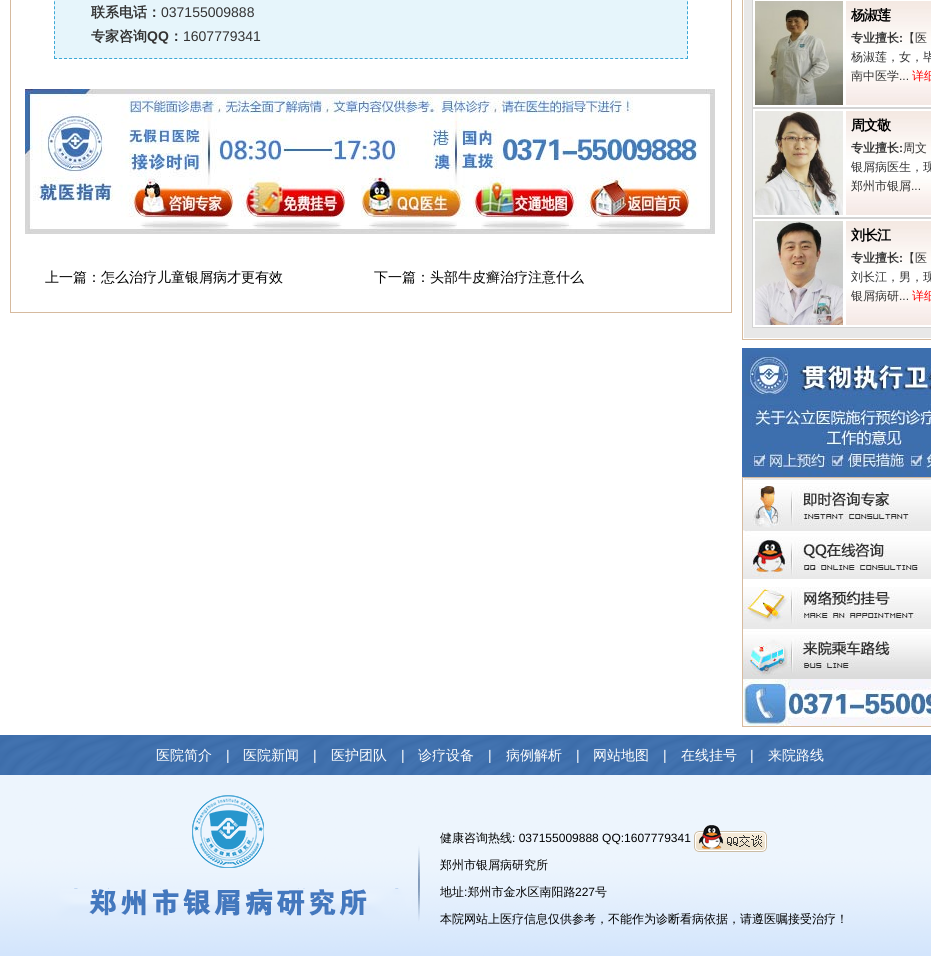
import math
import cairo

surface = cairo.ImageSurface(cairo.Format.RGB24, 931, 956)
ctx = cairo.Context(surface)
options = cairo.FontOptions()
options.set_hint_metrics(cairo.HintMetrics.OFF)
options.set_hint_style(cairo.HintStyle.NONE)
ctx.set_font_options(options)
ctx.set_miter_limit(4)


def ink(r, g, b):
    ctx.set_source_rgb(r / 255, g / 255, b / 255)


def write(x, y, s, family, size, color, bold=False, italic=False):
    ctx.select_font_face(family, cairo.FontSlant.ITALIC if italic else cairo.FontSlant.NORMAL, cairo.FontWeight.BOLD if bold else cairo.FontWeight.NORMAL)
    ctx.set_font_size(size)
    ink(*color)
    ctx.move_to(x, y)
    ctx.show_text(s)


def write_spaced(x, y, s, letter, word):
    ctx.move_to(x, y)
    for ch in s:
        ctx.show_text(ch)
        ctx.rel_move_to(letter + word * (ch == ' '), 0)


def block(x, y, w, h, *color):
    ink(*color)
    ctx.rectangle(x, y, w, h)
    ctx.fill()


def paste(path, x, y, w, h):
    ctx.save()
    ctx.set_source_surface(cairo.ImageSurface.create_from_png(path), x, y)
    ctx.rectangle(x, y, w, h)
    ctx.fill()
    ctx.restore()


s1 = dict(family="WenQuanYi Zen Hei", size=14, color=(51, 51, 51), bold=True)
s2 = dict(family="Liberation Sans", size=14, color=(51, 51, 51))
s3 = dict(family="Liberation Sans", size=14, color=(51, 51, 51), bold=True)
s4 = dict(family="WenQuanYi Zen Hei Medium", size=14, color=(0, 0, 0))
s5 = dict(family="WenQuanYi Zen Hei", size=12, color=(51, 51, 51), bold=True)
s6 = dict(family="Liberation Sans", size=12, color=(51, 51, 51), bold=True)
s7 = dict(family="WenQuanYi Zen Hei Medium", size=12, color=(51, 51, 51))
s8 = dict(family="Liberation Sans", size=12, color=(51, 51, 51))
s9 = dict(family="WenQuanYi Zen Hei Medium", size=12, color=(255, 0, 0))
s10 = dict(family="WenQuanYi Zen Hei Medium", size=14, color=(255, 255, 255))
s11 = dict(family="Liberation Sans", size=14, color=(255, 255, 255))
s12 = dict(family="WenQuanYi Zen Hei Medium", size=12, color=(0, 0, 0))
s13 = dict(family="Liberation Sans", size=12, color=(0, 0, 0))

ink(255, 255, 255)
ctx.paint()
ctx.rectangle(10.5, -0.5, 721, 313)
ink(214, 186, 158)
ctx.set_line_width(1)
ctx.stroke()
block(54, 0, 634, 59, 230, 245, 251)
ctx.new_path()
ctx.move_to(687.5, -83)
ctx.line_to(687.5, 59)
ink(59, 168, 214)
ctx.set_dash([3, 1.96])
ctx.stroke()
ctx.new_path()
ctx.move_to(54, 58.5)
ctx.line_to(688, 58.5)
ctx.set_dash([3, 2.01])
ctx.stroke()
ctx.new_path()
ctx.move_to(54.5, -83)
ctx.line_to(54.5, 59)
ctx.set_dash([3, 1.96])
ctx.stroke()
write(91, 17, "联系电话：", **s1)
write(161, 17, "037155009888", **s2)
write(91, 41, "专家咨询", **s1)
write(147, 41, "QQ", **s3)
write(169, 41, "：", **s1)
write(183, 41, "1607779341", **s2)
paste("pic1.png", 25, 89, 690, 145)
write(45, 282, "上一篇：怎么治疗儿童银屑病才更有效", **s4)
write(374, 282, "下一篇：头部牛皮癣治疗注意什么", **s4)
ctx.rectangle(742.5, -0.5, 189, 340)
ink(214, 186, 158)
ctx.set_dash([])
ctx.stroke()
block(744, 0, 187, 338, 232, 232, 232)
ink(255, 255, 255)
ctx.rectangle(752.5, -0.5, 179, 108)
ctx.fill_preserve()
ink(211, 211, 211)
ctx.stroke()
paste("pic2.png", 755, 1, 88, 104)
paste("pic3.png", 846, 1, 85, 104)
ctx.select_font_face("WenQuanYi Zen Hei", cairo.FontSlant.NORMAL, cairo.FontWeight.BOLD)
ink(0, 0, 0)
write_spaced(851, 20, "杨淑莲", -1, 0)
write(851, 42, "专业擅长", **s5)
write(899, 42, ":", **s6)
write(903, 42, "【医", **s7)
write(851, 61, "杨淑莲，女，毕", **s7)
write(851, 80, "南中医学", **s7)
write(899, 80, "...", **s8)
write(912, 80, "详细", **s9)
ink(255, 255, 255)
ctx.rectangle(752.5, 108.5, 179, 109)
ctx.fill_preserve()
ink(211, 211, 211)
ctx.stroke()
paste("pic4.png", 755, 111, 88, 104)
paste("pic3.png", 846, 111, 85, 104)
ctx.select_font_face("WenQuanYi Zen Hei", cairo.FontSlant.NORMAL, cairo.FontWeight.BOLD)
ctx.set_font_size(14)
ink(0, 0, 0)
write_spaced(851, 130, "周文敬", -1, 0)
write(851, 152, "专业擅长", **s5)
write(899, 152, ":", **s6)
write(903, 152, "周文", **s7)
write(851, 171, "银屑病医生，现", **s7)
write(851, 190, "郑州市银屑", **s7)
write(911, 190, "...", **s8)
ink(255, 255, 255)
ctx.rectangle(752.5, 218.5, 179, 109)
ctx.fill_preserve()
ink(211, 211, 211)
ctx.stroke()
paste("pic5.png", 755, 221, 88, 104)
paste("pic3.png", 846, 221, 85, 104)
ctx.select_font_face("WenQuanYi Zen Hei", cairo.FontSlant.NORMAL, cairo.FontWeight.BOLD)
ctx.set_font_size(14)
ink(0, 0, 0)
write_spaced(851, 240, "刘长江", -1, 0)
write(851, 262, "专业擅长", **s5)
write(899, 262, ":", **s6)
write(903, 262, "【医", **s7)
write(851, 281, "刘长江，男，现", **s7)
write(851, 300, "银屑病研", **s7)
write(899, 300, "...", **s8)
write(912, 300, "详细", **s9)
paste("pic6.png", 742, 348, 189, 129)
ctx.rectangle(742.5, 477.5, 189, 249)
ink(214, 186, 158)
ctx.stroke()
paste("pic7.png", 743, 478, 188, 52)
paste("pic8.png", 743, 530, 188, 49)
paste("pic9.png", 743, 587, 188, 41)
paste("pic10.png", 743, 628, 188, 51)
paste("pic11.png", 743, 679, 188, 47)
paste("pic12.png", 0, 735, 931, 40)
write(156, 760, "医院简介", **s10)
write(226, 760, "|", **s11)
write(243, 760, "医院新闻", **s10)
write(313, 760, "|", **s11)
write(331, 760, "医护团队", **s10)
write(401, 760, "|", **s11)
write(418, 760, "诊疗设备", **s10)
write(488, 760, "|", **s11)
write(506, 760, "病例解析", **s10)
write(576, 760, "|", **s11)
write(593, 760, "网站地图", **s10)
write(663, 760, "|", **s11)
write(681, 760, "在线挂号", **s10)
write(750, 760, "|", **s11)
write(768, 760, "来院路线", **s10)
paste("pic13.png", 0, 775, 931, 181)
write(440, 842, "健康咨询热线", **s12)
write(512, 842, ": 037155009888 QQ:1607779341", **s13)
paste("pic14.png", 694, 825, 73, 27)
write(440, 869, "郑州市银屑病研究所", **s12)
write(440, 896, "地址 郑州市金水区南阳路", **s12)
write(575, 896, "227", **s13)
write(595, 896, "号", **s12)
write(464, 896, ":", **s13)
write(440, 923, "本院网站上医疗信息仅供参考，不能作为诊断看病依据，请遵医嘱接受治疗！", **s12)
surface.write_to_png("screenshot.png")
